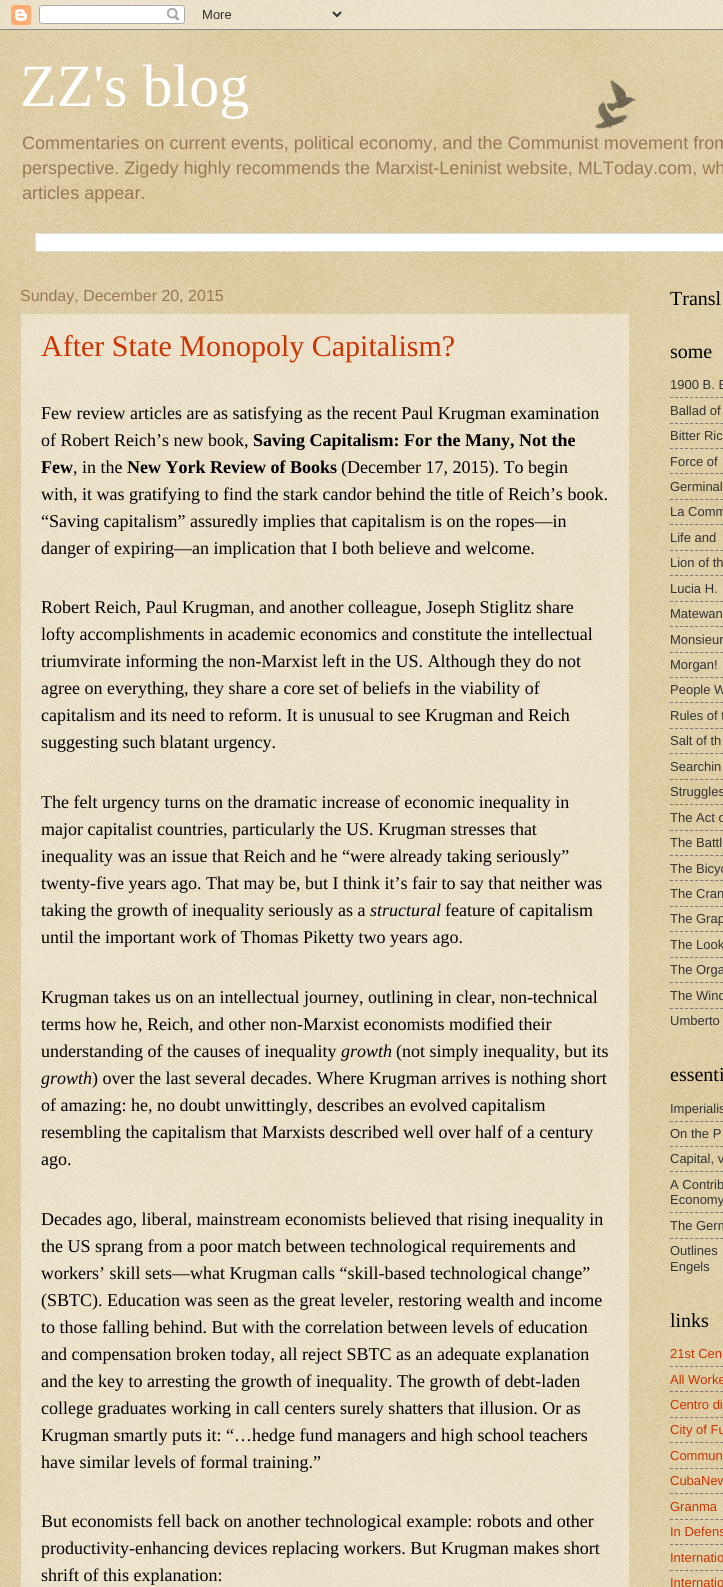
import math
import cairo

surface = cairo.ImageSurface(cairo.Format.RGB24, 723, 1587)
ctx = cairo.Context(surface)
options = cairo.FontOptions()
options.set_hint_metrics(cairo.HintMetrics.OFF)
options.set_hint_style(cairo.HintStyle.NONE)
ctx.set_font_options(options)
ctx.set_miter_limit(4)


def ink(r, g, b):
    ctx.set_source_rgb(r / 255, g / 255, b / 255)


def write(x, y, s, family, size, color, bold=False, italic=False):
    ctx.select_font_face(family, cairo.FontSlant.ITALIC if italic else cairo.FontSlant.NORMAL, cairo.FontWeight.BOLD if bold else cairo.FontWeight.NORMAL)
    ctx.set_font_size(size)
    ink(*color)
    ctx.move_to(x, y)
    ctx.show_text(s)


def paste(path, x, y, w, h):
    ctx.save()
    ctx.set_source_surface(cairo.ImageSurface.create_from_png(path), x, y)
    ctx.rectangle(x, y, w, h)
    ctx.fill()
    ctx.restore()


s1 = dict(family="Liberation Serif", size=60, color=(255, 255, 255))
s2 = dict(family="Liberation Sans", size=18.05, color=(153, 119, 85))
s3 = dict(family="Liberation Sans", size=16, color=(153, 119, 85))
s4 = dict(family="Liberation Serif", size=30, color=(204, 51, 0))
s5 = dict(family="Liberation Serif", size=18, color=(0, 0, 0))
s6 = dict(family="Liberation Serif", size=18, color=(0, 0, 0), bold=True)
s7 = dict(family="Liberation Serif", size=18, color=(0, 0, 0), italic=True)
s8 = dict(family="Liberation Serif", size=20, color=(0, 0, 0))
s9 = dict(family="Liberation Sans", size=13, color=(51, 51, 51))
s10 = dict(family="Liberation Sans", size=13, color=(204, 51, 0))

ink(192, 161, 84)
ctx.paint()
paste("pic1.png", 0, 0, 723, 1587)
paste("pic2.png", 0, 0, 723, 30)
write(20, 106, "ZZ's blog", **s1)
write(22, 149, "Commentaries on current events, political economy, and the Communist movement from", **s2)
write(22, 174, "perspective. Zigedy highly recommends the Marxist-Leninist website, MLToday.com, wh", **s2)
write(22, 199, "articles appear.", **s2)
ink(255, 255, 255)
ctx.rectangle(35.5, 233.5, 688, 18)
ctx.fill_preserve()
ink(221, 221, 221)
ctx.set_line_width(1)
ctx.stroke()
write(20, 301, "Sunday, December 20, 2015", **s3)
ctx.set_source_rgba(1, 1, 1, 0.4)
ctx.rectangle(20, 313, 610, 1274)
ctx.fill()
ctx.new_path()
ctx.move_to(20, 313.5)
ctx.line_to(630, 313.5)
ink(204, 187, 153)
ctx.set_dash([1, 1])
ctx.stroke()
ctx.new_path()
ctx.move_to(629.5, 313)
ctx.line_to(629.5, 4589)
ctx.stroke()
ctx.new_path()
ctx.move_to(20.5, 313)
ctx.line_to(20.5, 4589)
ctx.stroke()
write(41, 356, "After State Monopoly Capitalism?", **s4)
write(41, 419, "Few review articles are as satisfying as the recent Paul Krugman examination", **s5)
write(41, 446, "of Robert Reich’s new book,", **s5)
write(253, 446, "Saving Capitalism: For the Many, Not the", **s6)
write(41, 473, "Few", **s6)
write(73, 473, ", in the", **s5)
write(127, 473, "New York Review of Books", **s6)
write(341, 473, "(December 17, 2015). To begin", **s5)
write(41, 500, "with, it was gratifying to find the stark candor behind the title of Reich’s book.", **s5)
write(41, 527, "“Saving capitalism” assuredly implies that capitalism is on the ropes—in", **s5)
write(41, 554, "danger of expiring—an implication that I both believe and welcome.", **s5)
write(41, 613, "Robert Reich, Paul Krugman, and another colleague, Joseph Stiglitz share", **s5)
write(41, 640, "lofty accomplishments in academic economics and constitute the intellectual", **s5)
write(41, 667, "triumvirate informing the non-Marxist left in the US. Although they do not", **s5)
write(41, 694, "agree on everything, they share a core set of beliefs in the viability of", **s5)
write(41, 721, "capitalism and its need to reform. It is unusual to see Krugman and Reich", **s5)
write(41, 748, "suggesting such blatant urgency.", **s5)
write(41, 808, "The felt urgency turns on the dramatic increase of economic inequality in", **s5)
write(41, 835, "major capitalist countries, particularly the US. Krugman stresses that", **s5)
write(41, 862, "inequality was an issue that Reich and he “were already taking seriously”", **s5)
write(41, 889, "twenty-five years ago. That may be, but I think it’s fair to say that neither was", **s5)
write(41, 916, "taking the growth of inequality seriously as a", **s5)
write(370, 916, "structural", **s7)
write(445, 916, "feature of capitalism", **s5)
write(41, 943, "until the important work of Thomas Piketty two years ago.", **s5)
write(41, 1003, "Krugman takes us on an intellectual journey, outlining in clear, non-technical", **s5)
write(41, 1030, "terms how he, Reich, and other non-Marxist economists modified their", **s5)
write(41, 1057, "understanding of the causes of inequality", **s5)
write(341, 1057, "growth", **s7)
write(396, 1057, "(not simply inequality, but its", **s5)
write(41, 1084, "growth", **s7)
write(92, 1084, ") over the last several decades. Where Krugman arrives is nothing short", **s5)
write(41, 1111, "of amazing: he, no doubt unwittingly, describes an evolved capitalism", **s5)
write(41, 1138, "resembling the capitalism that Marxists described well over half of a century", **s5)
write(41, 1165, "ago.", **s5)
write(41, 1225, "Decades ago, liberal, mainstream economists believed that rising inequality in", **s5)
write(41, 1252, "the US sprang from a poor match between technological requirements and", **s5)
write(41, 1279, "workers’ skill sets—what Krugman calls “skill-based technological change”", **s5)
write(41, 1306, "(SBTC). Education was seen as the great leveler, restoring wealth and income", **s5)
write(41, 1333, "to those falling behind. But with the correlation between levels of education", **s5)
write(41, 1360, "and compensation broken today, all reject SBTC as an adequate explanation", **s5)
write(41, 1387, "and the key to arresting the growth of inequality. The growth of debt-laden", **s5)
write(41, 1414, "college graduates working in call centers surely shatters that illusion. Or as", **s5)
write(41, 1441, "Krugman smartly puts it: “…hedge fund managers and high school teachers", **s5)
write(41, 1468, "have similar levels of formal training.”", **s5)
write(41, 1527, "But economists fell back on another technological example: robots and other", **s5)
write(41, 1554, "productivity-enhancing devices replacing workers. But Krugman makes short", **s5)
write(41, 1581, "shrift of this explanation:", **s5)
write(670, 305, "Transl", **s8)
write(670, 358, "some", **s8)
write(670, 389, "1900 B. B", **s9)
ctx.new_path()
ctx.move_to(670, 397.5)
ctx.line_to(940, 397.5)
ctx.move_to(670, 423.5)
ctx.line_to(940, 423.5)
ctx.move_to(670, 448.5)
ctx.line_to(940, 448.5)
ink(119, 119, 119)
ctx.set_dash([3, 2.04])
ctx.stroke()
write(670, 415, "Ballad of", **s9)
write(670, 440, "Bitter Ric", **s9)
write(670, 466, "Force of", **s9)
ctx.new_path()
ctx.move_to(670, 473.5)
ctx.line_to(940, 473.5)
ctx.move_to(670, 499.5)
ctx.line_to(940, 499.5)
ctx.move_to(670, 524.5)
ctx.line_to(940, 524.5)
ink(119, 119, 119)
ctx.stroke()
write(670, 491, "Germinal", **s9)
write(670, 516, "La Comm", **s9)
write(670, 542, "Life and", **s9)
ctx.new_path()
ctx.move_to(670, 550.5)
ctx.line_to(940, 550.5)
ctx.move_to(670, 575.5)
ctx.line_to(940, 575.5)
ctx.move_to(670, 601.5)
ctx.line_to(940, 601.5)
ink(119, 119, 119)
ctx.stroke()
write(670, 567, "Lion of th", **s9)
write(670, 593, "Lucia H.", **s9)
write(670, 618, "Matewan", **s9)
ctx.new_path()
ctx.move_to(670, 626.5)
ctx.line_to(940, 626.5)
ctx.move_to(670, 652.5)
ctx.line_to(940, 652.5)
ctx.move_to(670, 677.5)
ctx.line_to(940, 677.5)
ink(119, 119, 119)
ctx.stroke()
write(670, 644, "Monsieur", **s9)
write(670, 669, "Morgan!", **s9)
write(670, 694, "People W", **s9)
ctx.new_path()
ctx.move_to(670, 702.5)
ctx.line_to(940, 702.5)
ctx.move_to(670, 728.5)
ctx.line_to(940, 728.5)
ctx.move_to(670, 753.5)
ctx.line_to(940, 753.5)
ink(119, 119, 119)
ctx.stroke()
write(670, 720, "Rules of t", **s9)
write(670, 745, "Salt of th", **s9)
write(670, 771, "Searchin", **s9)
ctx.new_path()
ctx.move_to(670, 779.5)
ctx.line_to(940, 779.5)
ctx.move_to(670, 804.5)
ctx.line_to(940, 804.5)
ctx.move_to(670, 830.5)
ctx.line_to(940, 830.5)
ink(119, 119, 119)
ctx.stroke()
write(670, 796, "Struggles", **s9)
write(670, 822, "The Act o", **s9)
write(670, 847, "The Battl", **s9)
ctx.new_path()
ctx.move_to(670, 855.5)
ctx.line_to(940, 855.5)
ctx.move_to(670, 880.5)
ctx.line_to(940, 880.5)
ctx.move_to(670, 906.5)
ctx.line_to(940, 906.5)
ink(119, 119, 119)
ctx.stroke()
write(670, 873, "The Bicyc", **s9)
write(670, 898, "The Cran", **s9)
write(670, 923, "The Grap", **s9)
ctx.new_path()
ctx.move_to(670, 931.5)
ctx.line_to(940, 931.5)
ctx.move_to(670, 957.5)
ctx.line_to(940, 957.5)
ctx.move_to(670, 982.5)
ctx.line_to(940, 982.5)
ink(119, 119, 119)
ctx.stroke()
write(670, 949, "The Look", **s9)
write(670, 974, "The Orga", **s9)
write(670, 1000, "The Wind", **s9)
ctx.new_path()
ctx.move_to(670, 1008.5)
ctx.line_to(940, 1008.5)
ink(119, 119, 119)
ctx.stroke()
write(670, 1025, "Umberto", **s9)
write(670, 1081, "essenti", **s8)
write(670, 1113, "Imperialis", **s9)
ctx.new_path()
ctx.move_to(670, 1121.5)
ctx.line_to(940, 1121.5)
ctx.move_to(670, 1146.5)
ctx.line_to(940, 1146.5)
ctx.move_to(670, 1171.5)
ctx.line_to(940, 1171.5)
ink(119, 119, 119)
ctx.stroke()
write(670, 1138, "On the P", **s9)
write(670, 1163, "Capital, v", **s9)
write(670, 1189, "A Contrib", **s9)
write(670, 1204, "Economy", **s9)
ctx.new_path()
ctx.move_to(670, 1212.5)
ctx.line_to(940, 1212.5)
ctx.move_to(670, 1238.5)
ctx.line_to(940, 1238.5)
ink(119, 119, 119)
ctx.stroke()
write(670, 1230, "The Germ", **s9)
write(670, 1255, "Outlines", **s9)
write(670, 1271, "Engels", **s9)
write(670, 1327, "links", **s8)
write(670, 1358, "21st Cen", **s10)
ctx.new_path()
ctx.move_to(670, 1366.5)
ctx.line_to(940, 1366.5)
ctx.move_to(670, 1391.5)
ctx.line_to(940, 1391.5)
ctx.move_to(670, 1417.5)
ctx.line_to(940, 1417.5)
ink(119, 119, 119)
ctx.stroke()
write(670, 1384, "All Worke", **s10)
write(670, 1409, "Centro di", **s10)
write(670, 1434, "City of Fu", **s10)
ctx.new_path()
ctx.move_to(670, 1442.5)
ctx.line_to(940, 1442.5)
ctx.move_to(670, 1468.5)
ctx.line_to(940, 1468.5)
ctx.move_to(670, 1493.5)
ctx.line_to(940, 1493.5)
ink(119, 119, 119)
ctx.stroke()
write(670, 1460, "Commun", **s10)
write(670, 1485, "CubaNew", **s10)
write(670, 1511, "Granma", **s10)
ctx.new_path()
ctx.move_to(670, 1519.5)
ctx.line_to(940, 1519.5)
ctx.move_to(670, 1544.5)
ctx.line_to(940, 1544.5)
ctx.move_to(670, 1570.5)
ctx.line_to(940, 1570.5)
ink(119, 119, 119)
ctx.stroke()
write(670, 1536, "In Defens", **s10)
write(670, 1562, "Internatio", **s10)
write(670, 1587, "Internatio", **s10)
paste("pic3.png", 595, 79, 42, 50)
surface.write_to_png("screenshot.png")
